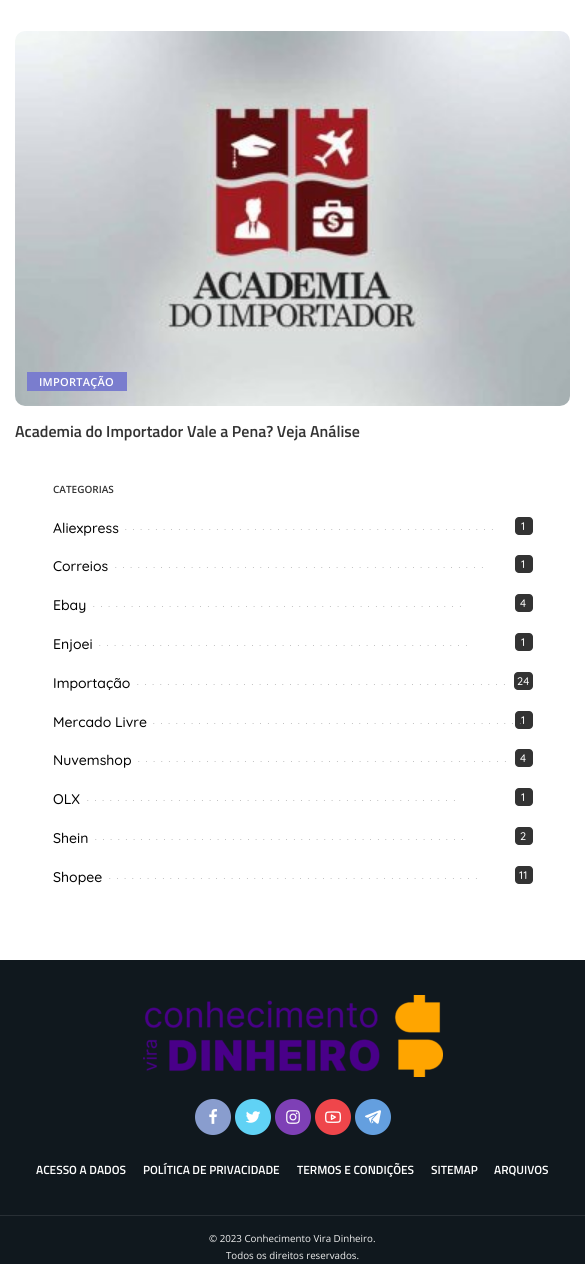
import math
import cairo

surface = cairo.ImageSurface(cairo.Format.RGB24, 585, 1264)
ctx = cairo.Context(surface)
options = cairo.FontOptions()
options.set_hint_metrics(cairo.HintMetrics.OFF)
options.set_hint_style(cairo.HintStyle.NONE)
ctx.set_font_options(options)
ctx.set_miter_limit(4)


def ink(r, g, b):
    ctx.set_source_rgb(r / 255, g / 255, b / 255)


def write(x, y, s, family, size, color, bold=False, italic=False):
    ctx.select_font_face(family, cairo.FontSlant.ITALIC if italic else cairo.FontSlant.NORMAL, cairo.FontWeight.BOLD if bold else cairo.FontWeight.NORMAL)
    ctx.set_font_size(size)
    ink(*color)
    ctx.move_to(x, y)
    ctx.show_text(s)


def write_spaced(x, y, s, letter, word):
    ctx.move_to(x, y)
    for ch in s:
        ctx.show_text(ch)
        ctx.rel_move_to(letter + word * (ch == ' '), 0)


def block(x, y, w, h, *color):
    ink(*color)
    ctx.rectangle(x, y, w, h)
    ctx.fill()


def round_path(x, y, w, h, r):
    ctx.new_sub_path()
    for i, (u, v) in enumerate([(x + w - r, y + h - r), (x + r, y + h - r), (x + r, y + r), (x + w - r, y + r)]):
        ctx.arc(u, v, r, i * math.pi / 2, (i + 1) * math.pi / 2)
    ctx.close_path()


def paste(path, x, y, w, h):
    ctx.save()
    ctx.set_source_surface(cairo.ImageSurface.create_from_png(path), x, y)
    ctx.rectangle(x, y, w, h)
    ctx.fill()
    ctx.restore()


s1 = dict(family="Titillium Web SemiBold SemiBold", size=16, color=(51, 51, 51))
s2 = dict(family="Open Sans SemiBold", size=10, color=(51, 51, 51))
s3 = dict(family="Quicksand Medium", size=14, color=(0, 0, 0))
s4 = dict(family="Quicksand Medium", size=11, color=(255, 255, 255))
s5 = dict(family="Titillium Web SemiBold SemiBold", size=11.9, color=(255, 255, 255))
s6 = dict(family="Open Sans", size=9.75, color=(239, 239, 239))

ink(255, 255, 255)
ctx.paint()
paste("pic1.png", 15, 31, 555, 375)
block(27, 372, 100, 19, 122, 125, 206)
ctx.select_font_face("Open Sans SemiBold")
ctx.set_font_size(11)
ink(255, 255, 255)
write_spaced(39, 386, "IMPORTAÇÃO", 0.25, 0)
write(15, 437, "Academia do Importador Vale a Pena? Veja Análise", **s1)
write(53, 493, "CATEGORIAS", **s2)
write(53, 533, "Aliexpress", **s3)
ctx.set_font_size(8)
ink(153, 153, 153)
write_spaced(125, 530, ".................................................", 6, 0)
ink(51, 51, 51)
round_path(515, 517, 18, 18, 4)
ctx.fill()
write(521, 530, "1", **s4)
write(53, 571, "Correios", **s3)
ctx.set_font_size(8)
ink(153, 153, 153)
write_spaced(115, 568, ".................................................", 6, 0)
ink(51, 51, 51)
round_path(515, 555, 18, 18, 4)
ctx.fill()
write(521, 568, "1", **s4)
write(53, 610, "Ebay", **s3)
ctx.set_font_size(8)
ink(153, 153, 153)
write_spaced(93, 607, ".................................................", 6, 0)
ink(51, 51, 51)
round_path(515, 594, 18, 18, 4)
ctx.fill()
write(520, 607, "4", **s4)
write(53, 649, "Enjoei", **s3)
ctx.set_font_size(8)
ink(153, 153, 153)
write_spaced(99, 646, ".................................................", 6, 0)
ink(51, 51, 51)
round_path(515, 633, 18, 18, 4)
ctx.fill()
write(521, 646, "1", **s4)
write(53, 688, "Importação", **s3)
ctx.set_font_size(8)
ink(153, 153, 153)
write_spaced(137, 685, ".................................................", 6, 0)
ink(51, 51, 51)
round_path(514, 672, 19, 18, 4)
ctx.fill()
write(517, 685, "24", **s4)
write(53, 727, "Mercado Livre", **s3)
ink(51, 51, 51)
round_path(515, 711, 18, 18, 4)
ctx.fill()
ctx.set_font_size(8)
ink(153, 153, 153)
write_spaced(153, 724, ".................................................", 6, 0)
write(521, 724, "1", **s4)
write(53, 765, "Nuvemshop", **s3)
ctx.set_font_size(8)
ink(153, 153, 153)
write_spaced(138, 762, ".................................................", 6, 0)
ink(51, 51, 51)
round_path(515, 749, 18, 18, 4)
ctx.fill()
write(520, 762, "4", **s4)
write(53, 804, "OLX", **s3)
ctx.set_font_size(8)
ink(153, 153, 153)
write_spaced(87, 801, ".................................................", 6, 0)
ink(51, 51, 51)
round_path(515, 788, 18, 18, 4)
ctx.fill()
write(521, 801, "1", **s4)
write(53, 843, "Shein", **s3)
ctx.set_font_size(8)
ink(153, 153, 153)
write_spaced(95, 840, ".................................................", 6, 0)
ink(51, 51, 51)
round_path(515, 827, 18, 18, 4)
ctx.fill()
write(520, 840, "2", **s4)
write(53, 882, "Shopee", **s3)
ctx.set_font_size(8)
ink(153, 153, 153)
write_spaced(109, 879, ".................................................", 6, 0)
ink(51, 51, 51)
round_path(515, 866, 18, 18, 4)
ctx.fill()
write(519, 879, "11", **s4)
block(0, 960, 585, 304, 16, 24, 30)
paste("pic2.png", 143, 995, 300, 82)
ink(137, 157, 206)
ctx.arc(213, 1117, 18, 0, 2 * math.pi)
ctx.fill()
paste("pic3.png", 209, 1109, 8, 15)
ink(96, 210, 245)
ctx.arc(253, 1117, 18, 0, 2 * math.pi)
ctx.fill()
paste("pic4.png", 245, 1111, 16, 12)
ink(126, 64, 182)
ctx.arc(293, 1117, 18, 0, 2 * math.pi)
ctx.fill()
paste("pic5.png", 286, 1110, 14, 14)
ink(239, 70, 75)
ctx.arc(333, 1117, 18, 0, 2 * math.pi)
ctx.fill()
paste("pic6.png", 325, 1111, 16, 12)
ink(100, 159, 223)
ctx.arc(373, 1117, 18, 0, 2 * math.pi)
ctx.fill()
paste("pic7.png", 365, 1110, 16, 14)
write(36, 1174, "ACESSO A DADOS", **s5)
write(143, 1174, "POLÍTICA DE PRIVACIDADE", **s5)
write(297, 1174, "TERMOS E CONDIÇÕES", **s5)
write(431, 1174, "SITEMAP", **s5)
write(494, 1174, "ARQUIVOS", **s5)
block(0, 1215, 585, 1, 40, 47, 53)
write(209, 1242, "© 2023 Conhecimento Vira Dinheiro.", **s6)
write(226, 1259, "Todos os direitos reservados.", **s6)
surface.write_to_png("screenshot.png")
